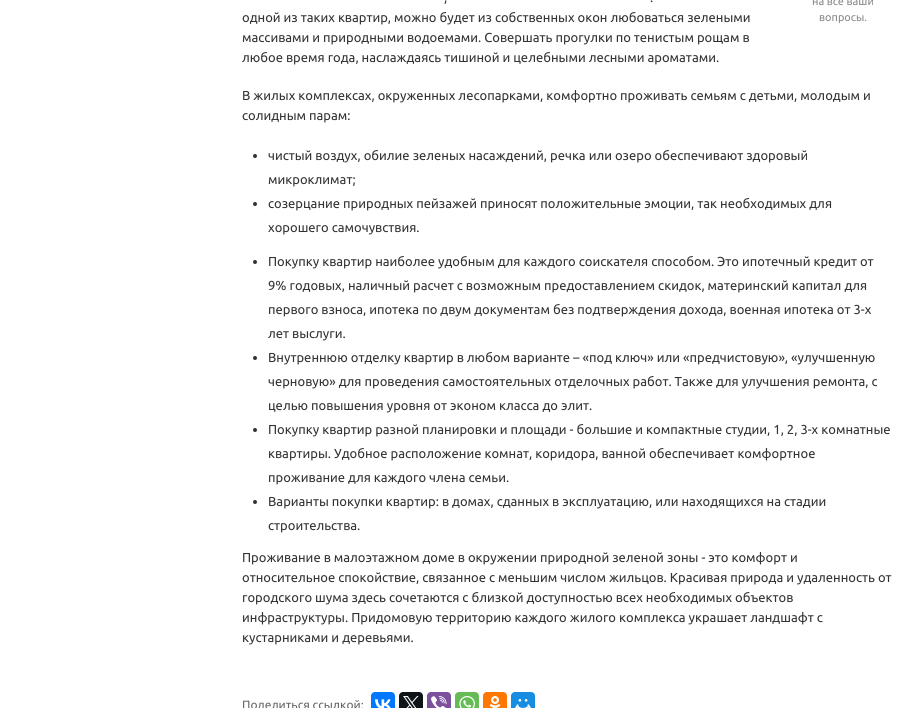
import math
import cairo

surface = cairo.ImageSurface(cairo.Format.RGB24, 908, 708)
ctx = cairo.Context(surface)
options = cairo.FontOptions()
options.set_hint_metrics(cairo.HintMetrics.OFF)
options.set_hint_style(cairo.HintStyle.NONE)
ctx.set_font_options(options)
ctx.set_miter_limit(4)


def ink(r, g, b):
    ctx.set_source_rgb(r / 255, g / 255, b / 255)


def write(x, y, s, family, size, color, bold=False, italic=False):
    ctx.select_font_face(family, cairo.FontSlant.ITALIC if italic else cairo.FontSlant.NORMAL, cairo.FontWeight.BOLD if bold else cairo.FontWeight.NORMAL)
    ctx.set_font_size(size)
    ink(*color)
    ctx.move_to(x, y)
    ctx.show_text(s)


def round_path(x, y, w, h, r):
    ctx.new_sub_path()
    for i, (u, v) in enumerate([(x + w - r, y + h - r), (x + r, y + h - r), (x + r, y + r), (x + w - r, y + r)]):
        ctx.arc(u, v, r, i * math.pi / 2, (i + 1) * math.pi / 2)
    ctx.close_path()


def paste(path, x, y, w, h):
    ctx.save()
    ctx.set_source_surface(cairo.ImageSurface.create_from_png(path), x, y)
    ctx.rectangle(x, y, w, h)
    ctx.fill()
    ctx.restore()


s1 = dict(family="Ubuntu", size=13, color=(51, 51, 51))
s2 = dict(family="Ubuntu", size=11, color=(136, 136, 136))
s3 = dict(family="Ubuntu", size=12, color=(102, 102, 102))

ink(255, 255, 255)
ctx.paint()
write(444, 2, ",", **s1)
write(650, 2, ".", **s1)
write(242, 22, "одной из таких квартир, можно будет из собственных окон любоваться зелеными", **s1)
write(242, 42, "массивами и природными водоемами. Совершать прогулки по тенистым рощам в", **s1)
write(242, 62, "любое время года, наслаждаясь тишиной и целебными лесными ароматами.", **s1)
write(242, 100, "В жилых комплексах, окруженных лесопарками, комфортно проживать семьям с детьми, молодым и", **s1)
write(242, 120, "солидным парам:", **s1)
ctx.new_path()
ctx.arc(255, 156, 2, 0, 2 * math.pi)
ctx.fill()
write(268, 160, "чистый воздух, обилие зеленых насаждений, речка или озеро обеспечивают здоровый", **s1)
write(268, 184, "микроклимат;", **s1)
ctx.new_path()
ctx.arc(255, 204, 2, 0, 2 * math.pi)
ctx.fill()
write(268, 208, "созерцание природных пейзажей приносят положительные эмоции, так необходимых для", **s1)
write(268, 232, "хорошего самочувствия.", **s1)
ctx.new_path()
ctx.arc(255, 262, 2, 0, 2 * math.pi)
ctx.fill()
write(268, 266, "Покупку квартир наиболее удобным для каждого соискателя способом. Это ипотечный кредит от", **s1)
write(268, 290, "9% годовых, наличный расчет с возможным предоставлением скидок, материнский капитал для", **s1)
write(268, 314, "первого взноса, ипотека по двум документам без подтверждения дохода, военная ипотека от 3-х", **s1)
write(268, 338, "лет выслуги.", **s1)
ctx.new_path()
ctx.arc(255, 358, 2, 0, 2 * math.pi)
ctx.fill()
write(268, 362, "Внутреннюю отделку квартир в любом варианте – «под ключ» или «предчистовую», «улучшенную", **s1)
write(268, 386, "черновую» для проведения самостоятельных отделочных работ. Также для улучшения ремонта, с", **s1)
write(268, 410, "целью повышения уровня от эконом класса до элит.", **s1)
ctx.new_path()
ctx.arc(255, 430, 2, 0, 2 * math.pi)
ctx.fill()
write(268, 434, "Покупку квартир разной планировки и площади - большие и компактные студии, 1, 2, 3-х комнатные", **s1)
write(268, 458, "квартиры. Удобное расположение комнат, коридора, ванной обеспечивает комфортное", **s1)
write(268, 482, "проживание для каждого члена семьи.", **s1)
ctx.new_path()
ctx.arc(255, 502, 2, 0, 2 * math.pi)
ctx.fill()
write(268, 506, "Варианты покупки квартир: в домах, сданных в эксплуатацию, или находящихся на стадии", **s1)
write(268, 530, "строительства.", **s1)
write(242, 562, "Проживание в малоэтажном доме в окружении природной зеленой зоны - это комфорт и", **s1)
write(242, 582, "относительное спокойствие, связанное с меньшим числом жильцов. Красивая природа и удаленность от", **s1)
write(242, 602, "городского шума здесь сочетаются с близкой доступностью всех необходимых объектов", **s1)
write(242, 622, "инфраструктуры. Придомовую территорию каждого жилого комплекса украшает ландшафт с", **s1)
write(242, 642, "кустарниками и деревьями.", **s1)
write(812, 5, "на все ваши", **s2)
write(819, 21, "вопросы.", **s2)
write(242, 709, "Поделиться ссылкой:", **s3)
ink(0, 119, 255)
round_path(371, 692, 24, 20, 4)
ctx.fill()
paste("pic1.png", 375, 699, 16, 9)
ink(15, 20, 25)
round_path(399, 692, 24, 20, 4)
ctx.fill()
paste("pic2.png", 403, 696, 16, 12)
ink(123, 81, 157)
round_path(427, 692, 24, 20, 4)
ctx.fill()
paste("pic3.png", 431, 696, 16, 12)
ink(101, 188, 84)
round_path(455, 692, 24, 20, 4)
ctx.fill()
paste("pic4.png", 459, 696, 16, 12)
ink(255, 119, 0)
round_path(483, 692, 24, 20, 4)
ctx.fill()
paste("pic5.png", 489, 696, 12, 12)
ink(22, 141, 226)
round_path(511, 692, 24, 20, 4)
ctx.fill()
paste("pic6.png", 515, 699, 16, 9)
surface.write_to_png("screenshot.png")
